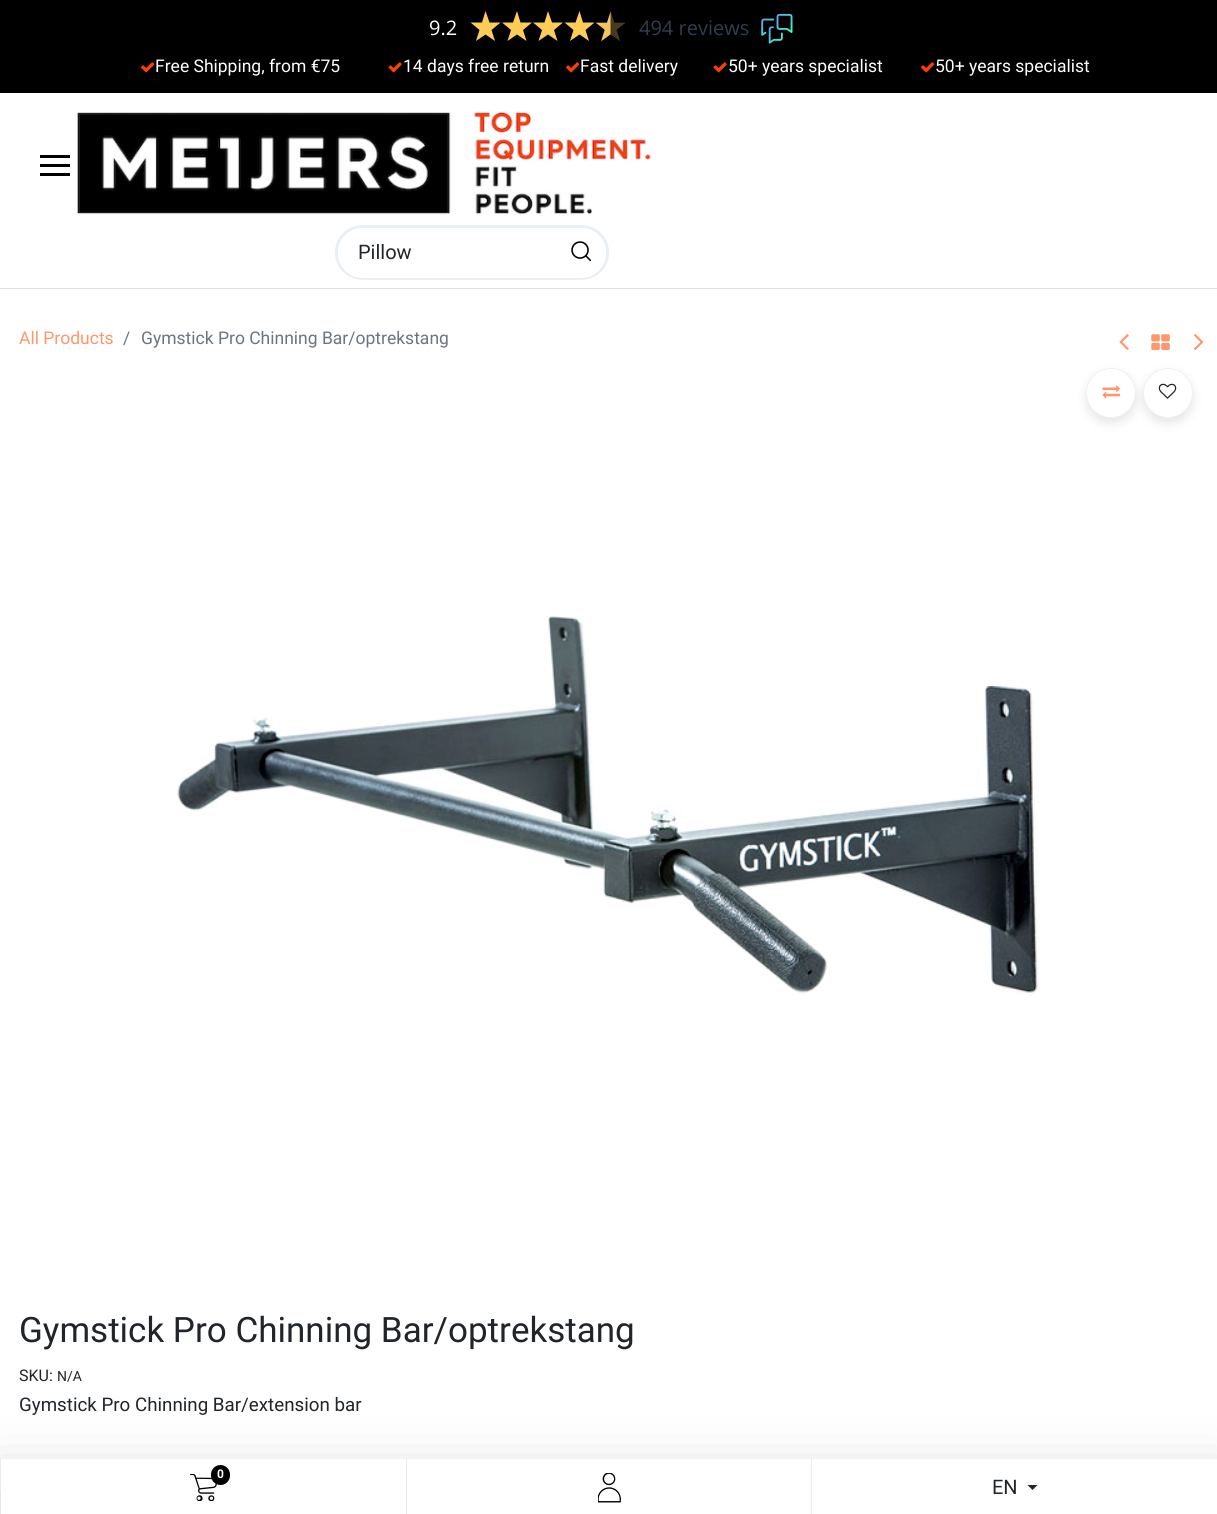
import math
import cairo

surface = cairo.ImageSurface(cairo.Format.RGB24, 1217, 1514)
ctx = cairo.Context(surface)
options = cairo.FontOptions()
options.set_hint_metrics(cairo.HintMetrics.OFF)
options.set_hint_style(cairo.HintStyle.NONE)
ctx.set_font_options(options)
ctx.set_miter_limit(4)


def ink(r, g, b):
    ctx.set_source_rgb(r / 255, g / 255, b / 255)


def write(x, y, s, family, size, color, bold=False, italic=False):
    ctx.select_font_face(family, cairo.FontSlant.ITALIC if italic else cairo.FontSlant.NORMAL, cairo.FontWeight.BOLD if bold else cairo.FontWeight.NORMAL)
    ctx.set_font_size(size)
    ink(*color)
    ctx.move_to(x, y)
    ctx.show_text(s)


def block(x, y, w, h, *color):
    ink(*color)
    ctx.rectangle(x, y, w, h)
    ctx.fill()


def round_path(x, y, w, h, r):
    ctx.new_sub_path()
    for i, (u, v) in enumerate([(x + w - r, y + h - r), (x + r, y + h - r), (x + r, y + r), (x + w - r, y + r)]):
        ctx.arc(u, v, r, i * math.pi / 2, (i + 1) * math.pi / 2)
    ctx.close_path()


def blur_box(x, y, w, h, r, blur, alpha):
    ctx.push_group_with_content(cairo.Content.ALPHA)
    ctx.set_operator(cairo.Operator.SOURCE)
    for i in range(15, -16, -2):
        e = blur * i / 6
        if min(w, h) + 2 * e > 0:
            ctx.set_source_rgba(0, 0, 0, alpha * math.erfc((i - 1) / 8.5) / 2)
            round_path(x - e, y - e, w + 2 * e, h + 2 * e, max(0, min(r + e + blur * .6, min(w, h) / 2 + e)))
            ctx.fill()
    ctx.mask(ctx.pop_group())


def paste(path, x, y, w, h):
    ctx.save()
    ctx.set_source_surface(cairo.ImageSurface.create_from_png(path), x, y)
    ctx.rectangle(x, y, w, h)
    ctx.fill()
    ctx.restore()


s1 = dict(family="Open Sans", size=20, color=(255, 255, 255))
s2 = dict(family="Open Sans", size=20, color=(48, 60, 80))
s3 = dict(family="Roboto", size=17.5, color=(255, 255, 255))
s4 = dict(family="Roboto", size=20, color=(33, 37, 41))
s5 = dict(family="Roboto", size=17.5, color=(255, 151, 108))
s6 = dict(family="Roboto", size=17.5, color=(108, 117, 125))
s7 = dict(family="Roboto", size=35, color=(33, 37, 41))
s8 = dict(family="Roboto", size=16, color=(33, 37, 41))
s9 = dict(family="Roboto", size=14, color=(33, 37, 41))
s10 = dict(family="Roboto", size=18.75, color=(33, 37, 41))
s11 = dict(family="Roboto", size=12, color=(255, 255, 255), bold=True)

ink(255, 255, 255)
ctx.paint()
block(0, 0, 1217, 93, 0, 0, 0)
write(429, 35, "9.2", **s1)
ink(254, 205, 88)
ctx.new_path()
ctx.move_to(495, 41)
ctx.line_to(491.5, 30)
ctx.line_to(500.5, 22.5)
ctx.line_to(489.5, 22.5)
ctx.line_to(485.5, 11)
ctx.line_to(482, 22.5)
ctx.line_to(470.5, 22.5)
ctx.line_to(479.5, 30)
ctx.line_to(476, 41)
ctx.line_to(485.5, 34.5)
ctx.close_path()
ctx.move_to(526.5, 41)
ctx.line_to(523, 30)
ctx.line_to(532, 22.5)
ctx.line_to(520.5, 22.5)
ctx.line_to(517, 11)
ctx.line_to(513, 22.5)
ctx.line_to(502, 22.5)
ctx.line_to(511, 30)
ctx.line_to(507.5, 41)
ctx.line_to(517, 34.5)
ctx.close_path()
ctx.fill()
ctx.new_path()
ctx.move_to(557.5, 41)
ctx.line_to(554, 30)
ctx.line_to(563, 22.5)
ctx.line_to(552, 22.5)
ctx.line_to(548, 11)
ctx.line_to(544.5, 22.5)
ctx.line_to(533, 22.5)
ctx.line_to(542, 30)
ctx.line_to(538.5, 41)
ctx.line_to(548, 34.5)
ctx.close_path()
ctx.move_to(589, 41)
ctx.line_to(585.5, 30)
ctx.line_to(594.5, 22.5)
ctx.line_to(583, 22.5)
ctx.line_to(579.5, 11)
ctx.line_to(575.5, 22.5)
ctx.line_to(564.5, 22.5)
ctx.line_to(573.5, 30)
ctx.line_to(570, 41)
ctx.line_to(579.5, 34.5)
ctx.close_path()
ctx.fill()
paste("pic1.png", 595, 11, 31, 30)
write(639, 35, "494 reviews", **s2)
paste("pic2.png", 761, 13, 32, 31)
paste("pic3.png", 141, 62, 14, 11)
write(155, 72, "Free Shipping, from €75", **s3)
paste("pic4.png", 388, 62, 14, 11)
write(403, 72, "14 days free return", **s3)
paste("pic3.png", 566, 62, 14, 11)
write(580, 72, "Fast delivery", **s3)
paste("pic4.png", 713, 62, 14, 11)
write(728, 72, "50+ years specialist", **s3)
paste("pic3.png", 921, 62, 14, 11)
write(935, 72, "50+ years specialist", **s3)
block(40, 155, 30, 3, 0, 0, 0)
block(40, 164, 30, 3, 0, 0, 0)
block(40, 173, 30, 3, 0, 0, 0)
paste("pic5.png", 77, 112, 574, 103)
round_path(336.5, 226.5, 271, 52, 26)
ink(234, 239, 243)
ctx.set_line_width(3)
ctx.stroke()
ink(255, 255, 255)
round_path(338, 228, 268, 50, 25)
ctx.fill()
write(358, 259, "Pillow", **s4)
paste("pic6.png", 571, 241, 20, 20)
block(0, 288, 1217, 1, 222, 222, 223)
write(19, 344, "All Products", **s5)
write(123, 344, "/", **s6)
write(141, 344, "Gymstick Pro Chinning Bar/optrekstang", **s6)
paste("pic7.png", 1119, 334, 10, 16)
paste("pic8.png", 1151, 334, 19, 16)
paste("pic9.png", 1194, 334, 10, 16)
paste("pic10.png", 177, 616, 862, 379)
ink(0, 0, 0)
blur_box(1086, 373, 50, 50, 25, 5, 0.1)
ink(255, 255, 255)
ctx.arc(1111, 393, 24.5, 0, 2 * math.pi)
ctx.fill_preserve()
ink(240, 240, 240)
ctx.set_line_width(1)
ctx.stroke()
paste("pic11.png", 1102, 385, 18, 14)
ink(0, 0, 0)
blur_box(1143, 373, 50, 50, 25, 5, 0.1)
ink(255, 255, 255)
ctx.arc(1168, 393, 24.5, 0, 2 * math.pi)
ctx.fill_preserve()
ink(240, 240, 240)
ctx.stroke()
paste("pic12.png", 1158, 383, 19, 16)
write(19, 1342, "Gymstick Pro Chinning Bar/optrekstang", **s7)
write(19, 1381, "SKU:", **s8)
write(57, 1381, "N/A", **s9)
write(19, 1411, "Gymstick Pro Chinning Bar/extension bar", **s10)
ink(0, 0, 0)
blur_box(-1, 1476, 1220, 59, 0, 28, 0.2)
block(1, 1459, 1216, 55, 255, 255, 255)
block(0, 1459, 1, 33, 235, 235, 235)
paste("pic13.png", 190, 1474, 27, 27)
ink(0, 0, 0)
round_path(211, 1465, 19, 20, 9.5)
ctx.fill()
write(217, 1478, "0", **s11)
block(406, 1459, 1, 55, 235, 235, 235)
paste("pic14.png", 598, 1473, 23, 30)
block(811, 1459, 1, 55, 235, 235, 235)
write(992, 1494, "EN", **s4)
ctx.new_path()
ctx.move_to(1027.5, 1485)
ctx.line_to(1037.5, 1485)
ctx.line_to(1032.5, 1490)
ctx.close_path()
ctx.fill()
surface.write_to_png("screenshot.png")
